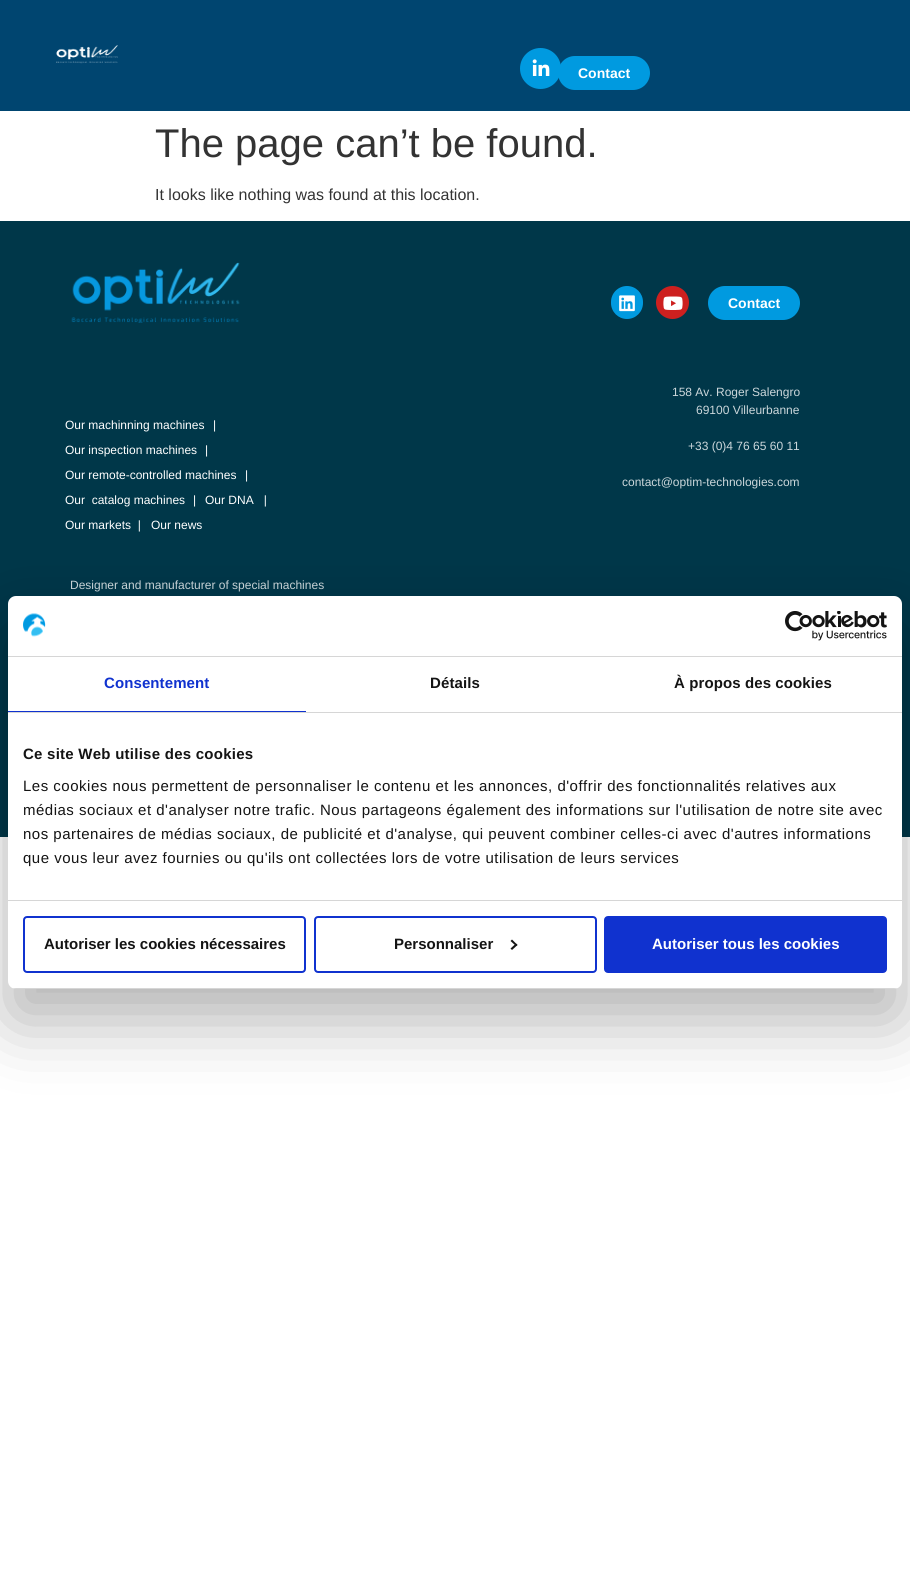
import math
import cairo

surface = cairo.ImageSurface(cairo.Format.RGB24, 910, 1583)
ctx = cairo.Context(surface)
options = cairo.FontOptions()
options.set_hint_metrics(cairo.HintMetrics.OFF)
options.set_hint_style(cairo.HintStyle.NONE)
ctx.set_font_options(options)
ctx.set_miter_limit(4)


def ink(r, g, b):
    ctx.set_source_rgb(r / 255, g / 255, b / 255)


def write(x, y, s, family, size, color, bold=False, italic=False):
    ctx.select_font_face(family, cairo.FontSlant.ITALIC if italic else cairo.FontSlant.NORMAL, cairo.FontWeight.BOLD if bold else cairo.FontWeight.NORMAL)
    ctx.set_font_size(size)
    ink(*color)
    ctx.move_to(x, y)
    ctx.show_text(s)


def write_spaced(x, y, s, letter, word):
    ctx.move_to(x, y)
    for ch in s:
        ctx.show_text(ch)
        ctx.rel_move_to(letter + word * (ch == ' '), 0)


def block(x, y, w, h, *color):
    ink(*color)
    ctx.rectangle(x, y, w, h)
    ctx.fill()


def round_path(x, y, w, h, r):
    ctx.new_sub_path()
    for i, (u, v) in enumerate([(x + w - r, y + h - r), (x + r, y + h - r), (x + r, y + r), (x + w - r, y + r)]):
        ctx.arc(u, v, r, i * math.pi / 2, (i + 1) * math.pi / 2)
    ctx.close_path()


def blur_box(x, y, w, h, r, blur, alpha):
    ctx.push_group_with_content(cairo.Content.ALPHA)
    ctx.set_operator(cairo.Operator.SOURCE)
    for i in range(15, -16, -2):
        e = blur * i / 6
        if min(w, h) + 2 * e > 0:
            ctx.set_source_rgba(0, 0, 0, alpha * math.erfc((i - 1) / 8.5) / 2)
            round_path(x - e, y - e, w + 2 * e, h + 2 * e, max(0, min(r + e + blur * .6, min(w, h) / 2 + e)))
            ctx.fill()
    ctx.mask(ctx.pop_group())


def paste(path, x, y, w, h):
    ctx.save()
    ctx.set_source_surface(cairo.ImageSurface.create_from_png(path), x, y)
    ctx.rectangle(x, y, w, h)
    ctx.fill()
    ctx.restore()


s1 = dict(family="Liberation Sans", size=14, color=(255, 255, 255), bold=True)
s2 = dict(family="Liberation Sans", size=40, color=(51, 51, 51))
s3 = dict(family="Liberation Sans", size=16, color=(51, 51, 51))
s4 = dict(family="Liberation Sans", size=12, color=(255, 255, 255))
s5 = dict(family="Liberation Sans", size=12, color=(204, 215, 219))
s6 = dict(family="Liberation Sans", size=15, color=(20, 20, 20), bold=True)
s7 = dict(family="Liberation Sans", size=15, color=(255, 255, 255), bold=True)

ink(255, 255, 255)
ctx.paint()
block(0, 0, 910, 111, 0, 69, 112)
paste("pic1.png", 56, 45, 62, 19)
ink(0, 154, 224)
ctx.arc(540.5, 68.5, 20.5, 0, 2 * math.pi)
ctx.fill()
paste("pic2.png", 532, 59, 18, 17)
round_path(558, 56, 92, 34, 17)
ctx.fill()
write(578, 78, "Contact", **s1)
write(155, 157, "The page can’t be found.", **s2)
write(155, 200, "It looks like nothing was found at this location.", **s3)
block(0, 221, 910, 616, 0, 55, 73)
paste("pic3.png", 71, 262, 169, 61)
write(65, 429, "Our machinning machines", **s4)
write(213, 429, "|", **s4)
write(65, 454, "Our inspection machines", **s4)
write(205, 454, "|", **s4)
write(65, 479, "Our remote-controlled machines", **s4)
write(245, 479, "|", **s4)
write(65, 504, "Our  catalog machines", **s4)
write(193, 504, "|", **s4)
write(205, 504, "Our DNA   |", **s4)
write(65, 529, "Our markets  |", **s4)
write(151, 529, "Our news", **s4)
write(70, 589, "Designer and manufacturer of special machines", **s5)
ink(0, 154, 224)
round_path(611, 286, 32, 33, 16)
ctx.fill()
paste("pic4.png", 619, 295, 16, 17)
ink(205, 32, 31)
ctx.arc(672.5, 302.5, 16.5, 0, 2 * math.pi)
ctx.fill()
paste("pic5.png", 663, 296, 20, 14)
ink(0, 154, 224)
round_path(708, 286, 92, 34, 17)
ctx.fill()
write(728, 308, "Contact", **s1)
write(672, 396, "158 Av. Roger Salengro", **s5)
write(696, 414, "69100 Villeurbanne", **s5)
write(688, 450, "+33 (0)4 76 65 60 11", **s5)
write(622, 486, "contact@optim-technologies.com", **s5)
ink(0, 0, 0)
blur_box(8, 628, 894, 393, 8, 34, 0.3)
ink(255, 255, 255)
round_path(8, 596, 894, 393, 8)
ctx.fill()
block(8, 656, 894, 1, 214, 214, 214)
paste("pic6.png", 23, 613, 23, 24)
paste("pic7.png", 785, 611, 102, 30)
block(8, 712, 894, 1, 214, 214, 214)
block(8, 711, 298, 1, 16, 50, 207)
ctx.select_font_face("Liberation Sans", cairo.FontSlant.NORMAL, cairo.FontWeight.BOLD)
ctx.set_font_size(15)
write_spaced(104, 688, "Consentement", 0.1, 0)
ink(20, 20, 20)
write_spaced(430, 688, "Détails", 0.1, 0)
write_spaced(674, 688, "À propos des cookies", 0.1, 0)
block(8, 900, 894, 1, 214, 214, 214)
ink(20, 20, 20)
write_spaced(23, 759, "Ce site Web utilise des cookies", 0.25, 0)
ctx.select_font_face("Liberation Sans")
write_spaced(23, 791, "Les cookies nous permettent de personnaliser le contenu et les annonces, d'offrir des fonctionnalités relatives aux", 0.5, 0)
write_spaced(23, 815, "médias sociaux et d'analyser notre trafic. Nous partageons également des informations sur l'utilisation de notre site avec", 0.5, 0)
write_spaced(23, 839, "nos partenaires de médias sociaux, de publicité et d'analyse, qui peuvent combiner celles-ci avec d'autres informations", 0.5, 0)
write_spaced(23, 863, "que vous leur avez fournies ou qu'ils ont collectées lors de votre utilisation de leurs services", 0.5, 0)
ctx.save()
round_path(8, 596, 894, 393, 8)
ctx.clip()
block(8, 988, 894, 1, 214, 214, 214)
ctx.restore()
round_path(24, 917, 281, 55, 3)
ink(16, 50, 207)
ctx.stroke()
write(44, 949, "Autoriser les cookies nécessaires", **s6)
round_path(315, 917, 281, 55, 3)
ink(16, 50, 207)
ctx.stroke()
write(394, 949, "Personnaliser", **s6)
ctx.new_path()
ctx.move_to(512, 939.5)
ctx.line_to(517.5, 945)
ctx.line_to(516, 946)
ctx.line_to(510.5, 941)
ctx.close_path()
ctx.fill()
ctx.new_path()
ctx.move_to(516, 943.5)
ctx.line_to(517.5, 945)
ctx.line_to(512, 950)
ctx.line_to(510.5, 948.5)
ctx.close_path()
ctx.fill()
ink(16, 50, 207)
round_path(605, 917, 281, 55, 3)
ctx.fill_preserve()
ctx.stroke()
write(652, 949, "Autoriser tous les cookies", **s7)
surface.write_to_png("screenshot.png")
